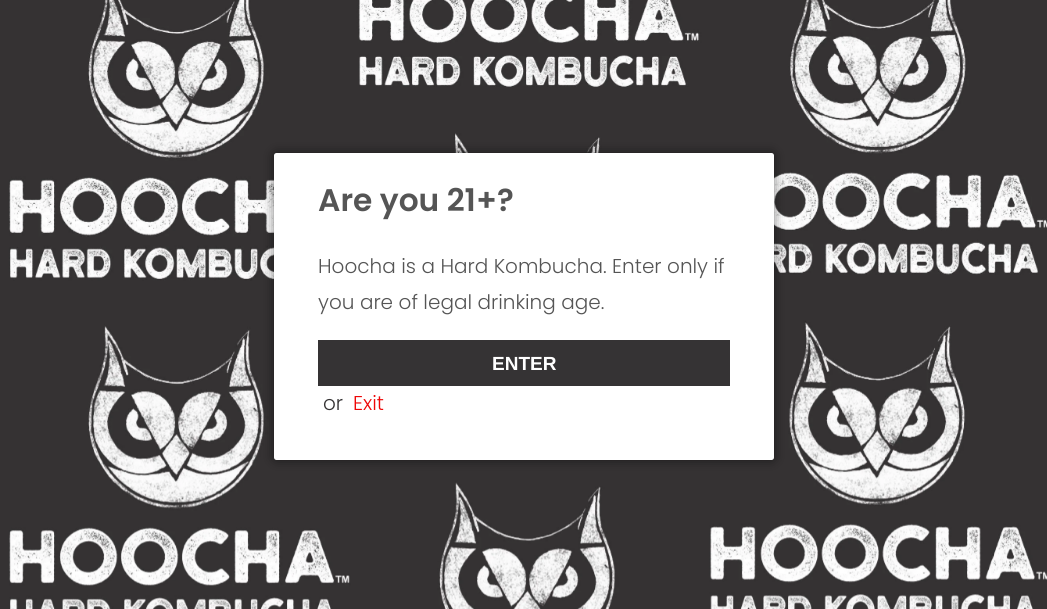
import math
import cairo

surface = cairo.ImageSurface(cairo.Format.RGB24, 1047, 609)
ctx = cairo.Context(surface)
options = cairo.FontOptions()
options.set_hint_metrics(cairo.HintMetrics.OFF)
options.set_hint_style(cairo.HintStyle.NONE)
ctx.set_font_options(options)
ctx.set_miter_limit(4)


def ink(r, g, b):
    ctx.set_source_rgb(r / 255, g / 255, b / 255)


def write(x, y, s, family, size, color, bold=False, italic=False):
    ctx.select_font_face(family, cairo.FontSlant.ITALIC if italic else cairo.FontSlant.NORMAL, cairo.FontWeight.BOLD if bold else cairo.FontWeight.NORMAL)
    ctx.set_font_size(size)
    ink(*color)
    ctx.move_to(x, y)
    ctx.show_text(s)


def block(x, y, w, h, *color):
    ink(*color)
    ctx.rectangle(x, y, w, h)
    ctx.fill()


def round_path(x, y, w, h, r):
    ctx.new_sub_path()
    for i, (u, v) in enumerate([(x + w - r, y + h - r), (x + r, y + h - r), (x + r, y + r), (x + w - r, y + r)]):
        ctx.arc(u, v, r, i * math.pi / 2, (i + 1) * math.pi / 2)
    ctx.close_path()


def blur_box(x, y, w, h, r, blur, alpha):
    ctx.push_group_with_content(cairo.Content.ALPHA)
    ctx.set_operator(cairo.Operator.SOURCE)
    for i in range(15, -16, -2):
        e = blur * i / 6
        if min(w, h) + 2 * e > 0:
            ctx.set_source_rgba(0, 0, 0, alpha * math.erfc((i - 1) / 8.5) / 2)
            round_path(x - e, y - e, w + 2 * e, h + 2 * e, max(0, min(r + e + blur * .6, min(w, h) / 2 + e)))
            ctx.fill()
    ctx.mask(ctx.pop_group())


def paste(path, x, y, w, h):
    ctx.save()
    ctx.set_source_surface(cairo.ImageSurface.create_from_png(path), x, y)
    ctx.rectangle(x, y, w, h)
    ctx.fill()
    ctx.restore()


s1 = dict(family="Poppins SemiBold", size=31.25, color=(85, 85, 85))
s2 = dict(family="Poppins Light", size=20, color=(85, 85, 85))
s3 = dict(family="Arimo", size=19, color=(255, 255, 255), bold=True)
s4 = dict(family="Poppins Light", size=20, color=(53, 51, 52))
s5 = dict(family="Poppins Light", size=20, color=(238, 7, 7))

ink(255, 255, 255)
ctx.paint()
paste("pic1.png", 0, 0, 1047, 609)
ink(0, 0, 0)
blur_box(274, 153, 500, 307, 2.5, 6, 0.5)
ink(255, 255, 255)
round_path(274, 153, 500, 307, 2.5)
ctx.fill()
write(318, 211, "Are you 21+?", **s1)
write(318, 273, "Hoocha is a Hard Kombucha. Enter only if", **s2)
write(318, 309, "you are of legal drinking age.", **s2)
block(318, 340, 412, 46, 53, 51, 52)
write(492, 370, "ENTER", **s3)
write(323, 410, "or", **s4)
write(353, 410, "Exit", **s5)
surface.write_to_png("screenshot.png")
